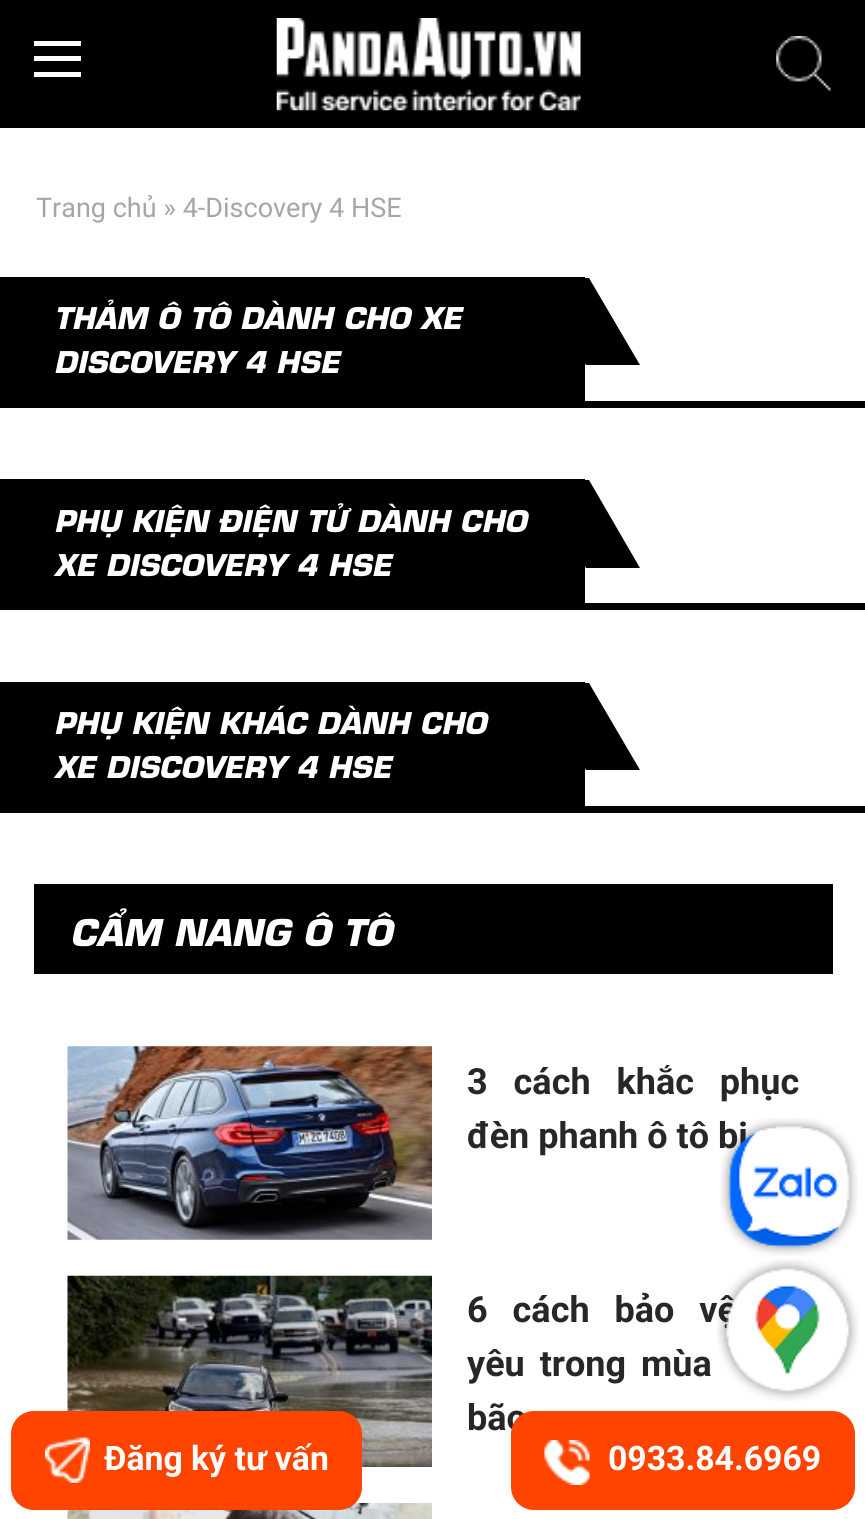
import math
import cairo

surface = cairo.ImageSurface(cairo.Format.RGB24, 865, 1519)
ctx = cairo.Context(surface)
options = cairo.FontOptions()
options.set_hint_metrics(cairo.HintMetrics.OFF)
options.set_hint_style(cairo.HintStyle.NONE)
ctx.set_font_options(options)
ctx.set_miter_limit(4)


def ink(r, g, b):
    ctx.set_source_rgb(r / 255, g / 255, b / 255)


def write(x, y, s, family, size, color, bold=False, italic=False):
    ctx.select_font_face(family, cairo.FontSlant.ITALIC if italic else cairo.FontSlant.NORMAL, cairo.FontWeight.BOLD if bold else cairo.FontWeight.NORMAL)
    ctx.set_font_size(size)
    ink(*color)
    ctx.move_to(x, y)
    ctx.show_text(s)


def write_spaced(x, y, s, letter, word):
    ctx.move_to(x, y)
    for ch in s:
        ctx.show_text(ch)
        ctx.rel_move_to(letter + word * (ch == ' '), 0)


def block(x, y, w, h, *color):
    ink(*color)
    ctx.rectangle(x, y, w, h)
    ctx.fill()


def round_path(x, y, w, h, r):
    ctx.new_sub_path()
    for i, (u, v) in enumerate([(x + w - r, y + h - r), (x + r, y + h - r), (x + r, y + r), (x + w - r, y + r)]):
        ctx.arc(u, v, r, i * math.pi / 2, (i + 1) * math.pi / 2)
    ctx.close_path()


def paste(path, x, y, w, h):
    ctx.save()
    ctx.set_source_surface(cairo.ImageSurface.create_from_png(path), x, y)
    ctx.rectangle(x, y, w, h)
    ctx.fill()
    ctx.restore()


s1 = dict(family="Roboto", size=27, color=(166, 166, 166))
s2 = dict(family="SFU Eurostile", size=29.25, color=(255, 255, 255), bold=True, italic=True)
s3 = dict(family="SFU Eurostile", size=36, color=(255, 255, 255), bold=True, italic=True)
s4 = dict(family="Roboto", size=36, color=(39, 39, 39), bold=True)
s5 = dict(family="Roboto", size=33.75, color=(255, 255, 255), bold=True)

ink(255, 255, 255)
ctx.paint()
block(0, 0, 865, 128, 0, 0, 0)
block(34, 41, 47, 5, 255, 255, 255)
block(34, 56, 47, 5, 255, 255, 255)
block(34, 72, 47, 5, 255, 255, 255)
paste("pic1.png", 276, 18, 305, 93)
paste("pic2.png", 776, 36, 57, 56)
write(36, 217, "Trang chủ » 4-Discovery 4 HSE", **s1)
block(0, 277, 585, 124, 0, 0, 0)
write(54, 329, "THẢM Ô TÔ DÀNH CHO XE", **s2)
ink(0, 0, 0)
ctx.new_path()
ctx.move_to(535, 278)
ctx.line_to(589, 278)
ctx.line_to(640, 365)
ctx.line_to(586, 365)
ctx.close_path()
ctx.fill()
write(54, 373, "DISCOVERY 4 HSE", **s2)
block(0, 401, 865, 7, 0, 0, 0)
block(0, 479, 585, 124, 0, 0, 0)
write(54, 532, "PHỤ KIỆN ĐIỆN TỬ DÀNH CHO", **s2)
ink(0, 0, 0)
ctx.new_path()
ctx.move_to(535, 480)
ctx.line_to(589, 480)
ctx.line_to(640, 568)
ctx.line_to(586, 568)
ctx.close_path()
ctx.fill()
write(54, 576, "XE DISCOVERY 4 HSE", **s2)
block(0, 603, 865, 7, 0, 0, 0)
block(0, 682, 585, 124, 0, 0, 0)
write(54, 734, "PHỤ KIỆN KHÁC DÀNH CHO", **s2)
ink(0, 0, 0)
ctx.new_path()
ctx.move_to(535, 683)
ctx.line_to(589, 683)
ctx.line_to(640, 770)
ctx.line_to(586, 770)
ctx.close_path()
ctx.fill()
write(54, 778, "XE DISCOVERY 4 HSE", **s2)
block(0, 806, 865, 7, 0, 0, 0)
block(34, 884, 799, 90, 0, 0, 0)
write(70, 946, "CẨM NANG Ô TÔ", **s3)
paste("pic3.png", 67, 1046, 365, 194)
ctx.select_font_face("Roboto", cairo.FontSlant.NORMAL, cairo.FontWeight.BOLD)
ink(39, 39, 39)
write_spaced(467, 1094, "3 cách khắc phục", 0, 17)
write(467, 1148, "đèn phanh ô tô bị", **s4)
paste("pic4.png", 67, 1275, 365, 192)
write_spaced(467, 1322, "6 cách bảo vệ", 0, 16)
write_spaced(467, 1376, "yêu trong mùa", 0, 6)
write(467, 1430, "bão", **s4)
paste("pic5.png", 67, 1503, 365, 16)
paste("pic6.png", 720, 1118, 138, 138)
paste("pic7.png", 717, 1259, 142, 142)
ink(255, 68, 0)
round_path(11, 1411, 351, 99, 23)
ctx.fill()
paste("pic8.png", 45, 1437, 45, 46)
write(104, 1470, "Đăng ký tư vấn", **s5)
ink(255, 68, 0)
round_path(511, 1411, 344, 99, 23)
ctx.fill()
paste("pic9.png", 544, 1440, 46, 45)
write(608, 1470, "0933.84.6969", **s5)
surface.write_to_png("screenshot.png")
